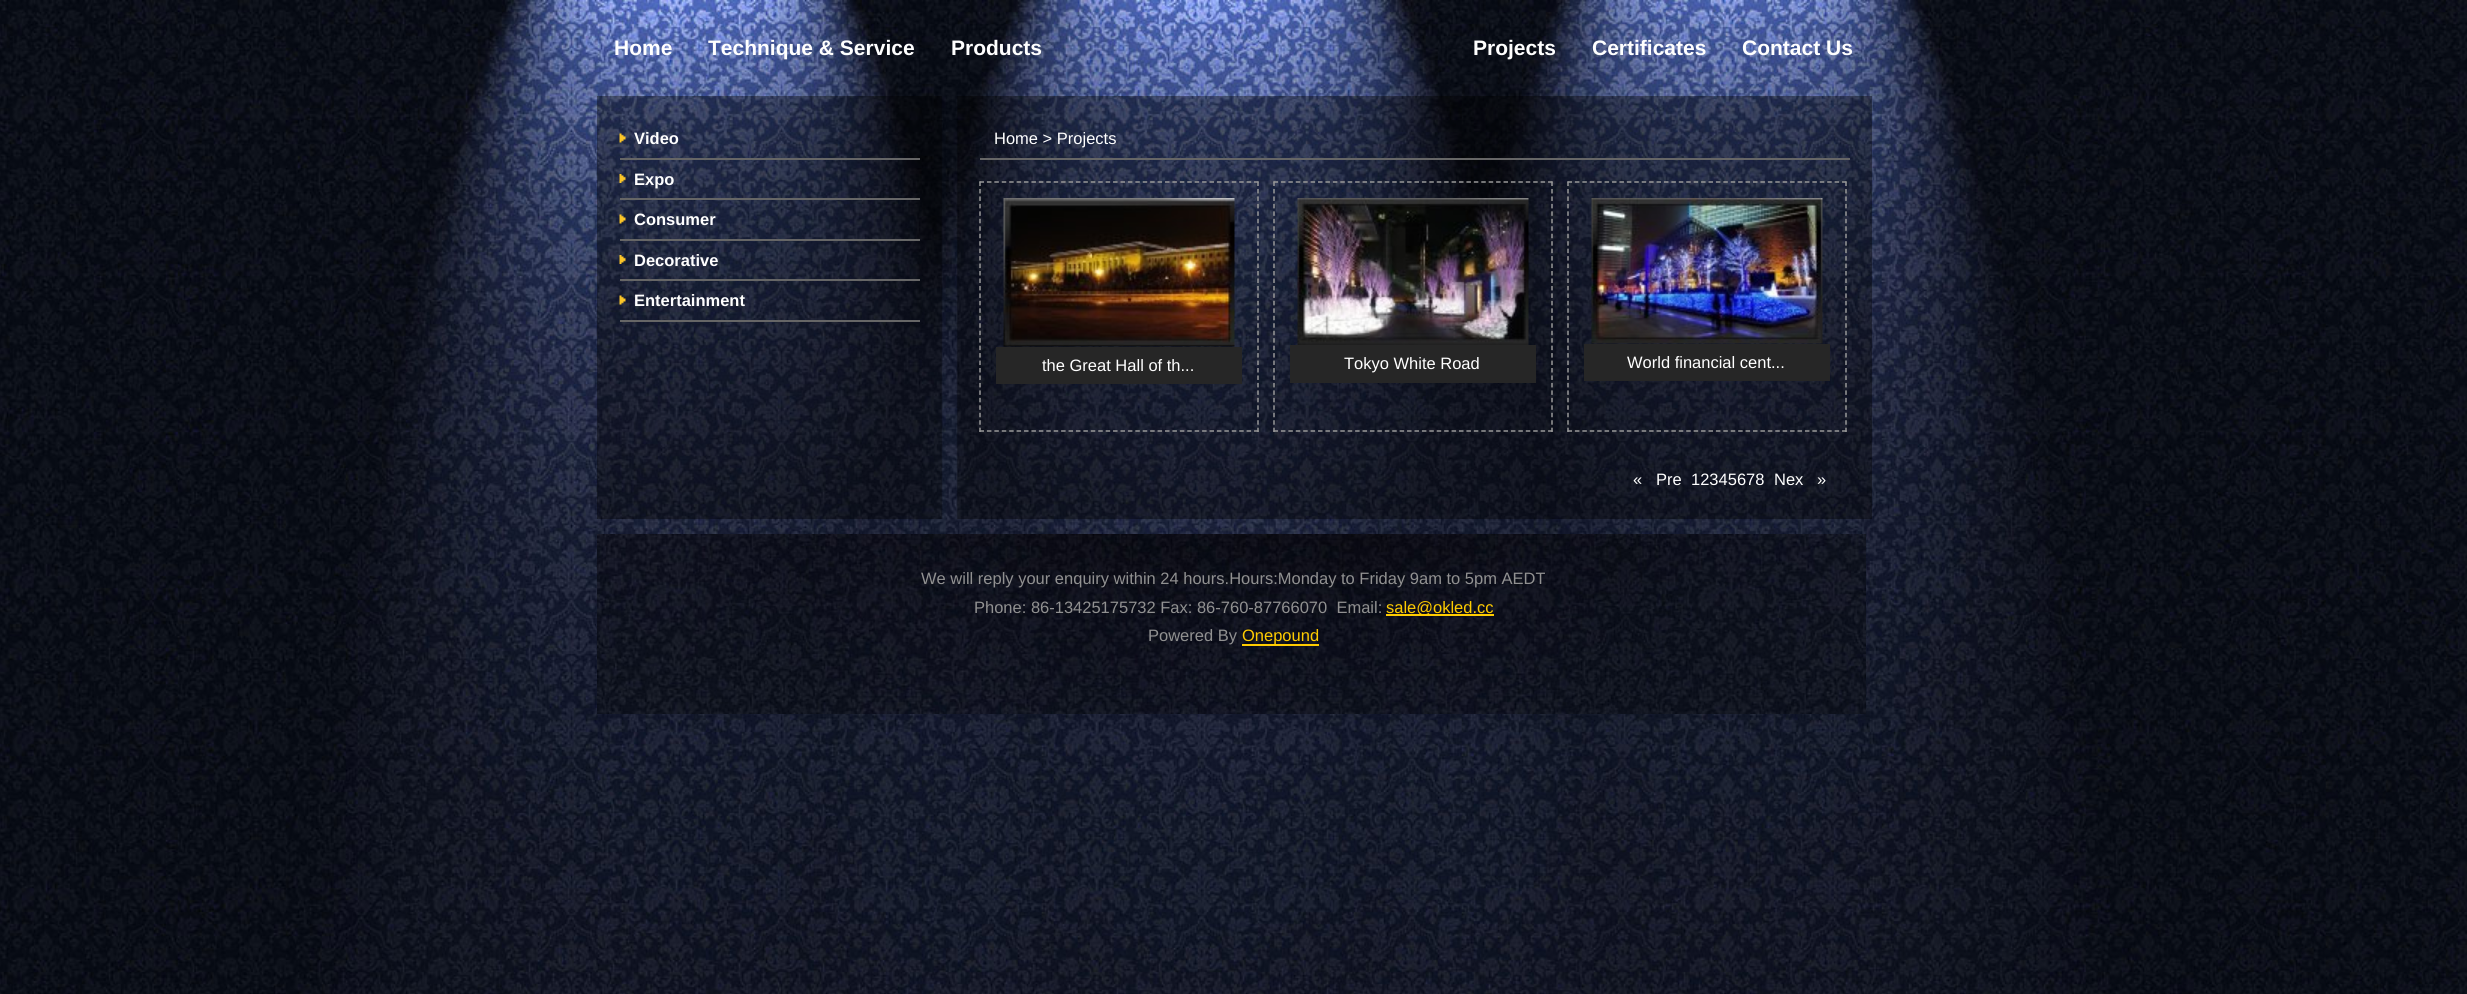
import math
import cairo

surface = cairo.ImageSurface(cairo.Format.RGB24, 2467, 994)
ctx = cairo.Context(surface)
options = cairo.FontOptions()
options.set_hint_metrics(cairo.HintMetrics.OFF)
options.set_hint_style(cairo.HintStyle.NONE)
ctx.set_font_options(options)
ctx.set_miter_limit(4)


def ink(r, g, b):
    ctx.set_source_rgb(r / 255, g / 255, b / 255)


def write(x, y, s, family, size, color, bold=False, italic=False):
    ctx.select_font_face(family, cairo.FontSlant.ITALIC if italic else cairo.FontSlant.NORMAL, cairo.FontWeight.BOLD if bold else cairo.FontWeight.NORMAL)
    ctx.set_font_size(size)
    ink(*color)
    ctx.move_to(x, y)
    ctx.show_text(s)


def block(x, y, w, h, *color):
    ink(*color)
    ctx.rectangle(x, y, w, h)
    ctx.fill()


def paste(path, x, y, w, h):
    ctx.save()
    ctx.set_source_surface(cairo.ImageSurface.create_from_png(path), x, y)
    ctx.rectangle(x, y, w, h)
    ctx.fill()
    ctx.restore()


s1 = dict(family="Liberation Sans", size=21, color=(255, 255, 255), bold=True)
s2 = dict(family="Liberation Sans", size=16.5, color=(255, 255, 255), bold=True)
s3 = dict(family="Liberation Sans", size=16.5, color=(255, 255, 255))
s4 = dict(family="Liberation Sans", size=16.5, color=(145, 145, 145))
s5 = dict(family="Liberation Sans", size=16.5, color=(255, 204, 0))

ink(255, 255, 255)
ctx.paint()
paste("pic1.png", 0, 0, 2467, 994)
write(614, 55, "Home", **s1)
write(708, 55, "Technique & Service", **s1)
write(951, 55, "Products", **s1)
write(1473, 55, "Projects", **s1)
write(1592, 55, "Certificates", **s1)
write(1742, 55, "Contact Us", **s1)
paste("pic2.png", 597, 96, 1275, 423)
paste("pic3.png", 619, 133, 7, 10)
block(620, 158, 300, 2, 102, 102, 102)
write(634, 144, "Video", **s2)
paste("pic4.png", 619, 174, 7, 9)
block(620, 198, 300, 2, 102, 102, 102)
write(634, 185, "Expo", **s2)
paste("pic5.png", 619, 214, 7, 10)
block(620, 239, 300, 2, 102, 102, 102)
write(634, 225, "Consumer", **s2)
paste("pic6.png", 619, 255, 7, 9)
block(620, 279, 300, 2, 102, 102, 102)
write(634, 266, "Decorative", **s2)
paste("pic7.png", 619, 295, 7, 10)
block(620, 320, 300, 2, 102, 102, 102)
write(634, 306, "Entertainment", **s2)
block(980, 158, 870, 2, 102, 102, 102)
write(994, 144, "Home > Projects", **s3)
ctx.new_path()
ctx.move_to(979.5, 182)
ctx.line_to(1258.5, 182)
ink(153, 153, 153)
ctx.set_line_width(1.5)
ctx.set_dash([4.5, 2.92])
ctx.stroke()
ctx.new_path()
ctx.move_to(1258, 181.5)
ctx.line_to(1258, 432)
ctx.set_dash([4.5, 2.96])
ctx.stroke()
ctx.new_path()
ctx.move_to(979.5, 431)
ctx.line_to(1258.5, 431)
ctx.set_dash([4.5, 2.92])
ctx.stroke()
ctx.new_path()
ctx.move_to(980, 181.5)
ctx.line_to(980, 432)
ctx.set_dash([4.5, 2.96])
ctx.stroke()
paste("pic8.png", 1003, 198, 232, 149)
block(996, 347, 246, 37, 38, 38, 38)
write(1042, 371, "the Great Hall of th...", **s3)
ctx.new_path()
ctx.move_to(1273.5, 182)
ctx.line_to(1552.5, 182)
ink(153, 153, 153)
ctx.set_dash([4.5, 2.92])
ctx.stroke()
ctx.new_path()
ctx.move_to(1552, 181.5)
ctx.line_to(1552, 432)
ctx.set_dash([4.5, 2.96])
ctx.stroke()
ctx.new_path()
ctx.move_to(1273.5, 431)
ctx.line_to(1552.5, 431)
ctx.set_dash([4.5, 2.92])
ctx.stroke()
ctx.new_path()
ctx.move_to(1274, 181.5)
ctx.line_to(1274, 432)
ctx.set_dash([4.5, 2.96])
ctx.stroke()
paste("pic9.png", 1297, 198, 232, 147)
block(1290, 345, 246, 38, 38, 38, 38)
write(1344, 369, "Tokyo White Road", **s3)
ctx.new_path()
ctx.move_to(1567.5, 182)
ctx.line_to(1846.5, 182)
ink(153, 153, 153)
ctx.set_dash([4.5, 2.92])
ctx.stroke()
ctx.new_path()
ctx.move_to(1846, 181.5)
ctx.line_to(1846, 432)
ctx.set_dash([4.5, 2.96])
ctx.stroke()
ctx.new_path()
ctx.move_to(1567.5, 431)
ctx.line_to(1846.5, 431)
ctx.set_dash([4.5, 2.92])
ctx.stroke()
ctx.new_path()
ctx.move_to(1568, 181.5)
ctx.line_to(1568, 432)
ctx.set_dash([4.5, 2.96])
ctx.stroke()
paste("pic10.png", 1591, 198, 232, 146)
block(1584, 344, 246, 37, 38, 38, 38)
write(1627, 368, "World financial cent...", **s3)
write(1633, 485, "«", **s3)
write(1656, 485, "Pre", **s3)
write(1691, 485, "12345678", **s3)
write(1774, 485, "Nex", **s3)
write(1817, 485, "»", **s3)
paste("pic11.png", 597, 534, 1269, 180)
write(921, 584, "We will reply your enquiry within 24 hours.Hours:Monday to Friday 9am to 5pm AEDT", **s4)
write(974, 613, "Phone: 86-13425175732 Fax: 86-760-87766070  Email:", **s4)
block(1386, 614, 108, 2, 255, 204, 0)
write(1386, 613, "sale@okled.cc", **s5)
write(1148, 641, "Powered By", **s4)
block(1242, 644, 77, 2, 255, 204, 0)
write(1242, 641, "Onepound", **s5)
surface.write_to_png("screenshot.png")
